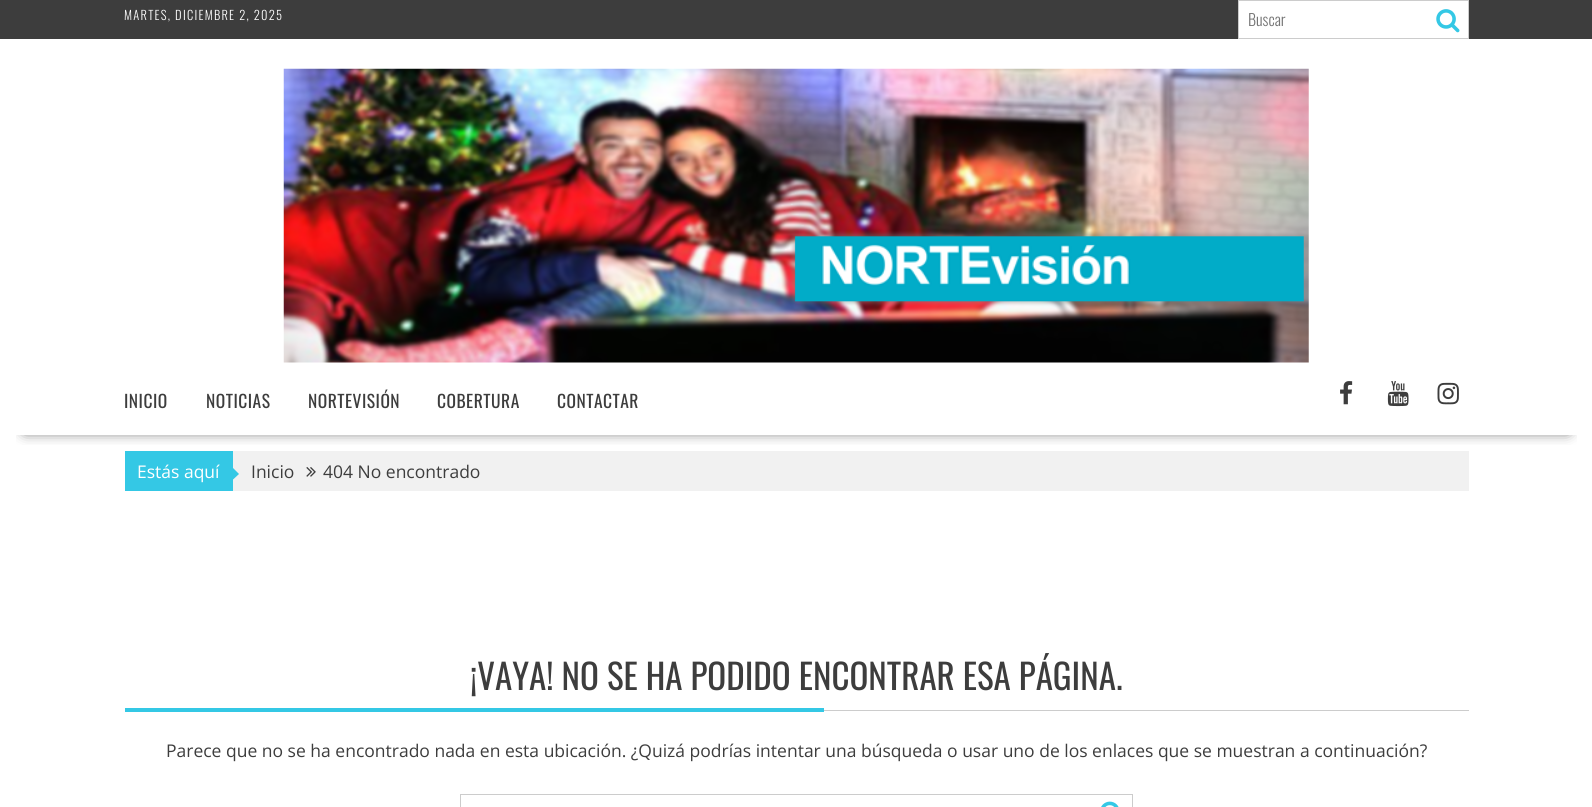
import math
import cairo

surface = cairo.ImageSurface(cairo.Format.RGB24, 1592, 807)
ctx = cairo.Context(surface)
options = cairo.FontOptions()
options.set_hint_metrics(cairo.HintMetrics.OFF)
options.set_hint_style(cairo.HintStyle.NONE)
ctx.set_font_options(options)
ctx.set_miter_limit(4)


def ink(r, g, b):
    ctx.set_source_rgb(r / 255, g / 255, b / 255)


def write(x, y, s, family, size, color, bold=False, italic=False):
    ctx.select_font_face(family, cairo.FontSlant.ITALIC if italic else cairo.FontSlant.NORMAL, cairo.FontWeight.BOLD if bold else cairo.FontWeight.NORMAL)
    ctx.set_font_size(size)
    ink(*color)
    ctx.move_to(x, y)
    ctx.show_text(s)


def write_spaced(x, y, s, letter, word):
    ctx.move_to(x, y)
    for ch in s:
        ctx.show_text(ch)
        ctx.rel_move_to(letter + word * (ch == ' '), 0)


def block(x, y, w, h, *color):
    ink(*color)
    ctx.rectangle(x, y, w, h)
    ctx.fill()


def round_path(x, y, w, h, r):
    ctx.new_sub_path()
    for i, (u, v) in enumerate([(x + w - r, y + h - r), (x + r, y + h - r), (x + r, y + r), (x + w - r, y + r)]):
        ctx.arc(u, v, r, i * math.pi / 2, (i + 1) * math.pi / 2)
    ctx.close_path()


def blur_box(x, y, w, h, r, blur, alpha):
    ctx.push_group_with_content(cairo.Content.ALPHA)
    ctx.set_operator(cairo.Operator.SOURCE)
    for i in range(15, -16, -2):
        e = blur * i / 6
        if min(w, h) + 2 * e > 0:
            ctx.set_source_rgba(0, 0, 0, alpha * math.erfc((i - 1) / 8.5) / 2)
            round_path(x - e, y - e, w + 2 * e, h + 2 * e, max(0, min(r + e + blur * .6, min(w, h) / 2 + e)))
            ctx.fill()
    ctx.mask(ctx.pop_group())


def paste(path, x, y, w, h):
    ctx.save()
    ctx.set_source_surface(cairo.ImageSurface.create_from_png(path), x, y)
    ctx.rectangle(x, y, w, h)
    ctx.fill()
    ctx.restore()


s1 = dict(family="Oswald Light", size=16, color=(117, 117, 117))
s2 = dict(family="Open Sans", size=17.5, color=(255, 255, 255))
s3 = dict(family="Open Sans", size=17.5, color=(61, 61, 61))
s4 = dict(family="Oswald", size=35, color=(61, 61, 61))

ink(255, 255, 255)
ctx.paint()
block(0, 0, 1592, 39, 61, 61, 61)
ctx.select_font_face("Oswald Light")
ctx.set_font_size(12.5)
ink(255, 255, 255)
write_spaced(124, 20, "MARTES, DICIEMBRE 2, 2025", 1.25, 0)
ctx.rectangle(1238.5, 0.5, 230, 38)
ctx.fill_preserve()
ink(204, 204, 204)
ctx.set_line_width(1)
ctx.stroke()
write(1248, 26, "Buscar", **s1)
paste("pic1.png", 1436, 9, 24, 24)
paste("pic2.png", 283, 68, 1026, 295)
block(233, 451, 1236, 40, 241, 241, 241)
ctx.save()
ctx.rectangle(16, 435, 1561, 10)
ctx.clip()
ink(0, 0, 0)
blur_box(25, 416, 1543, 15, 0, 7, 0.75)
ctx.restore()
ctx.select_font_face("Oswald")
ctx.set_font_size(17.5)
ink(61, 61, 61)
write_spaced(124, 408, "INICIO", 0.5, 0)
write_spaced(206, 408, "NOTICIAS", 0.5, 0)
write_spaced(308, 408, "NORTEVISIÓN", 0.5, 0)
write_spaced(437, 408, "COBERTURA", 0.5, 0)
write_spaced(557, 408, "CONTACTAR", 0.5, 0)
paste("pic3.png", 1340, 381, 13, 24)
paste("pic4.png", 1387, 381, 22, 26)
paste("pic5.png", 1437, 382, 22, 23)
block(125, 451, 108, 40, 52, 200, 229)
write(137, 478, "Estás aquí", **s2)
ink(52, 200, 229)
ctx.new_path()
ctx.move_to(232.5, 480)
ctx.line_to(232.5, 467.5)
ctx.line_to(239, 474)
ctx.close_path()
ctx.fill()
write(251, 478, "Inicio", **s3)
paste("pic6.png", 306, 467, 10, 10)
write(323, 478, "404 No encontrado", **s3)
block(824, 710, 645, 1, 204, 204, 204)
write(470, 690, "¡VAYA! NO SE HA PODIDO ENCONTRAR ESA PÁGINA.", **s4)
block(125, 708, 699, 4, 52, 200, 229)
write(166, 757, "Parece que no se ha encontrado nada en esta ubicación. ¿Quizá podrías intentar una búsqueda o usar uno de los enlaces que se muestran a continuación?", **s3)
ctx.rectangle(460.5, 794.5, 672, 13)
ink(204, 204, 204)
ctx.stroke()
paste("pic7.png", 1101, 801, 18, 6)
surface.write_to_png("screenshot.png")
